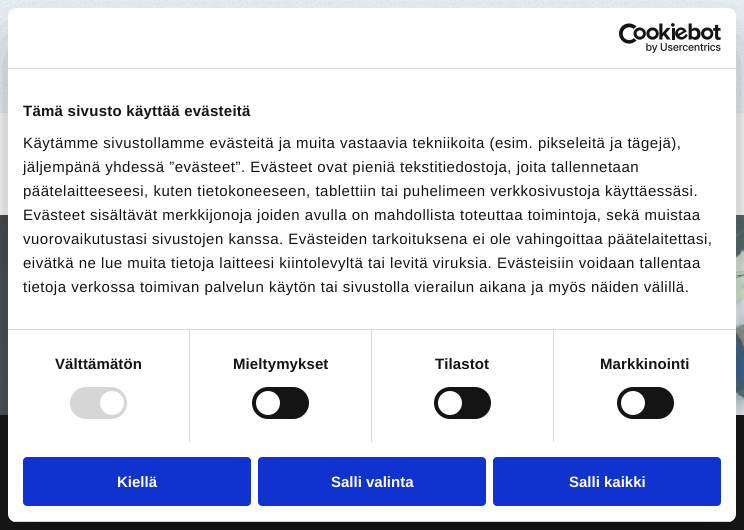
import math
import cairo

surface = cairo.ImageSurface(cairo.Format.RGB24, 744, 530)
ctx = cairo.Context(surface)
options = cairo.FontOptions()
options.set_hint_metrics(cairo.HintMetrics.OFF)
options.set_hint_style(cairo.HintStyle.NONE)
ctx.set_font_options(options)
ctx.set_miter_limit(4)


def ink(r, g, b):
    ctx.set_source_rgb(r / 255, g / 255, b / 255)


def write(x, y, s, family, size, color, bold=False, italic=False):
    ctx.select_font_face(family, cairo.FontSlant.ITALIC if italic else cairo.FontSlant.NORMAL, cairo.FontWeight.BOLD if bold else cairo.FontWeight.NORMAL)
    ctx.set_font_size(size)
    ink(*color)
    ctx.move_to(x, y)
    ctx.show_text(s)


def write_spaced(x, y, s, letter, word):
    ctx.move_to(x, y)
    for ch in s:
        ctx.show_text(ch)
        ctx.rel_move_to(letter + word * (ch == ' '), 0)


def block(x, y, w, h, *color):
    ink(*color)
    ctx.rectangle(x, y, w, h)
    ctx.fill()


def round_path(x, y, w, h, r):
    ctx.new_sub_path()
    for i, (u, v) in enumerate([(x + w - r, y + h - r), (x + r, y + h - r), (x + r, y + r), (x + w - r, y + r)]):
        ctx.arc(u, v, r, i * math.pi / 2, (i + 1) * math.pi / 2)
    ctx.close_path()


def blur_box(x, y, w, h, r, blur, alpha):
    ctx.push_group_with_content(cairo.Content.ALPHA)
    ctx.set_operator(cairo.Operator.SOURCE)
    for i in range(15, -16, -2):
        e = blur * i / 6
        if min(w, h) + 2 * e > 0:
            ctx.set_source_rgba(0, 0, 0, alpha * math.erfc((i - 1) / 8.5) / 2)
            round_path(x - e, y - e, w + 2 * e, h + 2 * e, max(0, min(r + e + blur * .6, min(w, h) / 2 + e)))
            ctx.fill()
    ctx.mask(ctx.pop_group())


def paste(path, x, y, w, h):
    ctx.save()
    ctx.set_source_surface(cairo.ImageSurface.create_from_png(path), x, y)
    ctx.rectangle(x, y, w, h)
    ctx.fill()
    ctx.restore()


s1 = dict(family="Liberation Sans", size=15, color=(255, 255, 255), bold=True)

ink(255, 255, 255)
ctx.paint()
block(0, 0, 744, 113, 239, 249, 253)
paste("pic1.png", 0, 0, 744, 113)
paste("pic2.png", 0, 215, 744, 200)
block(0, 415, 744, 115, 23, 23, 23)
ink(0, 0, 0)
blur_box(8, 40, 728, 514, 8, 34, 0.3)
ink(255, 255, 255)
round_path(8, 8, 728, 514, 8)
ctx.fill()
block(8, 68, 728, 1, 214, 214, 214)
paste("pic3.png", 619, 23, 102, 30)
block(8, 329, 728, 1, 214, 214, 214)
ctx.select_font_face("Liberation Sans", cairo.FontSlant.NORMAL, cairo.FontWeight.BOLD)
ctx.set_font_size(15)
ink(20, 20, 20)
write_spaced(23, 116, "Tämä sivusto käyttää evästeitä", 0.25, 0)
ctx.select_font_face("Liberation Sans")
write_spaced(23, 148, "Käytämme sivustollamme evästeitä ja muita vastaavia tekniikoita (esim. pikseleitä ja tägejä),", 0.5, 0)
write_spaced(23, 172, "jäljempänä yhdessä ”evästeet”. Evästeet ovat pieniä tekstitiedostoja, joita tallennetaan", 0.5, 0)
write_spaced(23, 196, "päätelaitteeseesi, kuten tietokoneeseen, tablettiin tai puhelimeen verkkosivustoja käyttäessäsi.", 0.5, 0)
write_spaced(23, 220, "Evästeet sisältävät merkkijonoja joiden avulla on mahdollista toteuttaa toimintoja, sekä muistaa", 0.5, 0)
write_spaced(23, 244, "vuorovaikutustasi sivustojen kanssa. Evästeiden tarkoituksena ei ole vahingoittaa päätelaitettasi,", 0.5, 0)
write_spaced(23, 268, "eivätkä ne lue muita tietoja laitteesi kiintolevyltä tai levitä viruksia. Evästeisiin voidaan tallentaa", 0.5, 0)
write_spaced(23, 292, "tietoja verkossa toimivan palvelun käytön tai sivustolla vierailun aikana ja myös näiden välillä.", 0.5, 0)
block(189, 330, 1, 112, 214, 214, 214)
ctx.select_font_face("Liberation Sans", cairo.FontSlant.NORMAL, cairo.FontWeight.BOLD)
ink(20, 20, 20)
write_spaced(55, 369, "Välttämätön", 0.1, 0)
ink(214, 214, 214)
round_path(70, 387, 57, 32, 16)
ctx.fill()
ink(255, 255, 255)
ctx.arc(112, 403, 12, 0, 2 * math.pi)
ctx.fill()
block(371, 330, 1, 112, 214, 214, 214)
ink(20, 20, 20)
write_spaced(233, 369, "Mieltymykset", 0.1, 0)
round_path(252, 387, 57, 32, 16)
ctx.fill()
ink(255, 255, 255)
ctx.arc(268, 403, 12, 0, 2 * math.pi)
ctx.fill()
block(553, 330, 1, 112, 214, 214, 214)
ink(20, 20, 20)
write_spaced(435, 369, "Tilastot", 0.1, 0)
round_path(434, 387, 57, 32, 16)
ctx.fill()
ink(255, 255, 255)
ctx.arc(450, 403, 12, 0, 2 * math.pi)
ctx.fill()
ink(20, 20, 20)
write_spaced(600, 369, "Markkinointi", 0.1, 0)
round_path(617, 387, 57, 32, 16)
ctx.fill()
ink(255, 255, 255)
ctx.arc(633, 403, 12, 0, 2 * math.pi)
ctx.fill()
ctx.save()
round_path(8, 8, 728, 514, 8)
ctx.clip()
block(8, 521, 728, 1, 214, 214, 214)
ctx.restore()
ink(16, 50, 207)
round_path(24, 458, 226, 47, 3)
ctx.fill_preserve()
ctx.stroke()
write(117, 487, "Kiellä", **s1)
ink(16, 50, 207)
round_path(259, 458, 226, 47, 3)
ctx.fill_preserve()
ctx.stroke()
write(331, 487, "Salli valinta", **s1)
ink(16, 50, 207)
round_path(494, 458, 226, 47, 3)
ctx.fill_preserve()
ctx.stroke()
write(569, 487, "Salli kaikki", **s1)
surface.write_to_png("screenshot.png")
